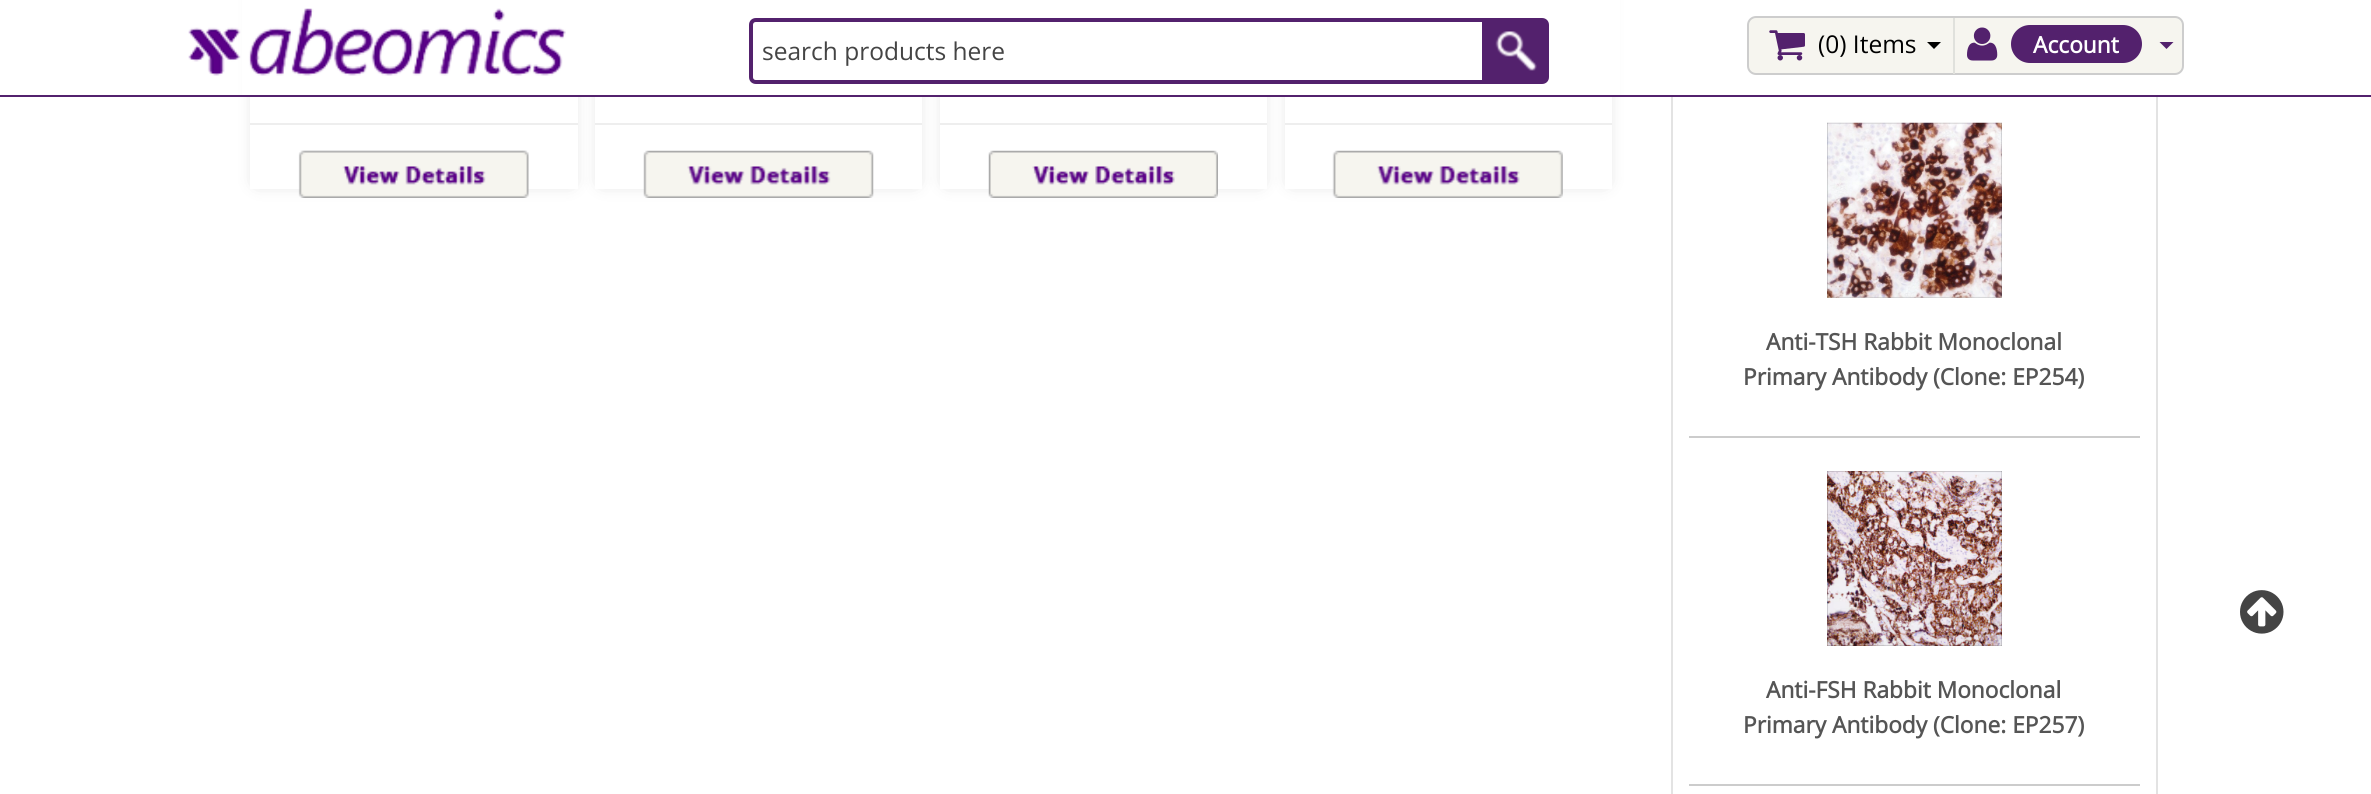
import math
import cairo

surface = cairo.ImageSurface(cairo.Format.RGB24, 2371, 794)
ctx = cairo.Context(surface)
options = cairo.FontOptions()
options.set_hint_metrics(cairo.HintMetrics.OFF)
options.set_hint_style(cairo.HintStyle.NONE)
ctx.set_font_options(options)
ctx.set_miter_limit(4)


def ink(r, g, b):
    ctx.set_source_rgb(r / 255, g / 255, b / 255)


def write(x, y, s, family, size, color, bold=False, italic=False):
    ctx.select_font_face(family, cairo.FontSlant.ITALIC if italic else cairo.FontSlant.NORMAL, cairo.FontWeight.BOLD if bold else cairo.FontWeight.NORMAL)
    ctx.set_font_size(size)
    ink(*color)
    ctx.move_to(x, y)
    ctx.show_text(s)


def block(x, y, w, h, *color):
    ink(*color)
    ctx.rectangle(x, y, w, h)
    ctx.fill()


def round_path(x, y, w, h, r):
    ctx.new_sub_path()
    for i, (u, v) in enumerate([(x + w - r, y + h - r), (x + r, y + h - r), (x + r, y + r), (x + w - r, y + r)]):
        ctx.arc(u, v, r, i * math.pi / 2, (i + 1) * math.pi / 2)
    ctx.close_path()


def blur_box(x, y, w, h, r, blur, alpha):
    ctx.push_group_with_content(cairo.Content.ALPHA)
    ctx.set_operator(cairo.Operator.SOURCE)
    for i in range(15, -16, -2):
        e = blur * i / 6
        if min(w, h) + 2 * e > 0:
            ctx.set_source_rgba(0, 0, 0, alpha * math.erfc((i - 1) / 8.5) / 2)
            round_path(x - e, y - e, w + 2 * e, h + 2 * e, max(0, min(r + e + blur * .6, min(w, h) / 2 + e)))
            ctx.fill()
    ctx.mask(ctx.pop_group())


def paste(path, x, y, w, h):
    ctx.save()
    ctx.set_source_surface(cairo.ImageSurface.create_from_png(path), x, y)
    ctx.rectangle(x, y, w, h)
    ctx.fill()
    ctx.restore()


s1 = dict(family="Open Sans", size=24.5, color=(68, 68, 68))
s2 = dict(family="Open Sans", size=24.5, color=(0, 0, 0))
s3 = dict(family="Open Sans", size=22.75, color=(255, 255, 255), bold=True)
s4 = dict(family="Open Sans", size=22.75, color=(85, 85, 85), bold=True)

ink(255, 255, 255)
ctx.paint()
ctx.save()
ctx.set_fill_rule(cairo.FillRule.EVEN_ODD)
ctx.new_path()
ctx.move_to(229, 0)
ctx.line_to(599, 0)
ctx.line_to(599, 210)
ctx.line_to(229, 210)
ctx.close_path()
ctx.move_to(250, -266)
ctx.line_to(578, -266)
ctx.line_to(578, 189)
ctx.line_to(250, 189)
ctx.close_path()
ctx.clip()
ink(0, 0, 0)
blur_box(257, -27, 314, 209, 0, 9, 0.2)
ctx.restore()
block(250, 123, 328, 2, 238, 238, 238)
ctx.save()
ctx.set_fill_rule(cairo.FillRule.EVEN_ODD)
ctx.new_path()
ctx.move_to(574, 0)
ctx.line_to(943, 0)
ctx.line_to(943, 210)
ctx.line_to(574, 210)
ctx.close_path()
ctx.move_to(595, -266)
ctx.line_to(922, -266)
ctx.line_to(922, 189)
ctx.line_to(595, 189)
ctx.close_path()
ctx.clip()
ink(0, 0, 0)
blur_box(602, -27, 313, 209, 0, 9, 0.2)
ctx.restore()
block(595, 123, 327, 2, 238, 238, 238)
ctx.save()
ctx.set_fill_rule(cairo.FillRule.EVEN_ODD)
ctx.new_path()
ctx.move_to(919, 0)
ctx.line_to(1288, 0)
ctx.line_to(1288, 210)
ctx.line_to(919, 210)
ctx.close_path()
ctx.move_to(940, -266)
ctx.line_to(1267, -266)
ctx.line_to(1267, 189)
ctx.line_to(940, 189)
ctx.close_path()
ctx.clip()
ink(0, 0, 0)
blur_box(947, -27, 313, 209, 0, 9, 0.2)
ctx.restore()
block(940, 123, 327, 2, 238, 238, 238)
ctx.save()
ctx.set_fill_rule(cairo.FillRule.EVEN_ODD)
ctx.new_path()
ctx.move_to(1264, 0)
ctx.line_to(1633, 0)
ctx.line_to(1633, 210)
ctx.line_to(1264, 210)
ctx.close_path()
ctx.move_to(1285, -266)
ctx.line_to(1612, -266)
ctx.line_to(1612, 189)
ctx.line_to(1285, 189)
ctx.close_path()
ctx.clip()
ink(0, 0, 0)
blur_box(1292, -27, 313, 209, 0, 9, 0.2)
ctx.restore()
block(242, 0, 1378, 95, 255, 255, 255)
block(0, 95, 2371, 2, 83, 33, 109)
paste("pic1.png", 188, 8, 378, 68)
ctx.new_path()
ctx.move_to(756, 20)
ctx.line_to(1484, 20)
ctx.line_to(1484, 82)
ctx.line_to(756, 82)
ctx.curve_to(753, 82, 751, 80, 751, 77)
ctx.line_to(751, 25)
ctx.curve_to(751, 22, 753, 20, 756, 20)
ctx.close_path()
ctx.set_line_width(4)
ctx.stroke()
write(762, 60, "search products here", **s1)
ink(83, 33, 109)
ctx.new_path()
ctx.move_to(1487, 19)
ctx.line_to(1542, 19)
ctx.curve_to(1545.5, 19, 1548, 21.5, 1548, 25)
ctx.line_to(1548, 77)
ctx.curve_to(1548, 80.5, 1545.5, 83, 1542, 83)
ctx.line_to(1487, 83)
ctx.close_path()
ctx.fill_preserve()
ctx.set_line_width(2)
ctx.stroke()
paste("pic2.png", 1495, 31, 42, 40)
ink(246, 245, 239)
round_path(1748, 17, 435, 57, 8)
ctx.fill_preserve()
ink(205, 205, 205)
ctx.stroke()
block(1953, 18, 2, 56, 224, 225, 220)
paste("pic3.png", 1769, 30, 36, 31)
write(1818, 53, "(0) Items", **s2)
ctx.new_path()
ctx.move_to(1927, 42)
ctx.line_to(1941, 42)
ctx.line_to(1934, 49)
ctx.close_path()
ctx.fill()
paste("pic4.png", 1967, 27, 31, 34)
ink(83, 33, 109)
round_path(2011, 25, 131, 38, 19)
ctx.fill()
write(2033, 53, "Account", **s3)
ink(83, 33, 109)
ctx.new_path()
ctx.move_to(2159.5, 42)
ctx.line_to(2173.5, 42)
ctx.line_to(2166.5, 49)
ctx.close_path()
ctx.fill()
paste("pic5.png", 298, 150, 231, 48)
paste("pic6.png", 643, 150, 231, 48)
paste("pic7.png", 988, 150, 230, 48)
block(1285, 123, 327, 2, 238, 238, 238)
paste("pic8.png", 1332, 150, 231, 48)
block(2156, 97, 2, 697, 227, 227, 227)
block(1671, 97, 2, 697, 227, 227, 227)
block(1689, 436, 451, 2, 204, 204, 204)
paste("pic9.png", 1827, 122, 175, 176)
write(1766, 350, "Anti-TSH Rabbit Monoclonal", **s4)
write(1743, 385, "Primary Antibody (Clone: EP254)", **s4)
block(1689, 784, 451, 2, 204, 204, 204)
paste("pic10.png", 1827, 471, 175, 175)
write(1766, 698, "Anti-FSH Rabbit Monoclonal", **s4)
write(1743, 733, "Primary Antibody (Clone: EP257)", **s4)
paste("pic11.png", 2240, 590, 44, 44)
surface.write_to_png("screenshot.png")
